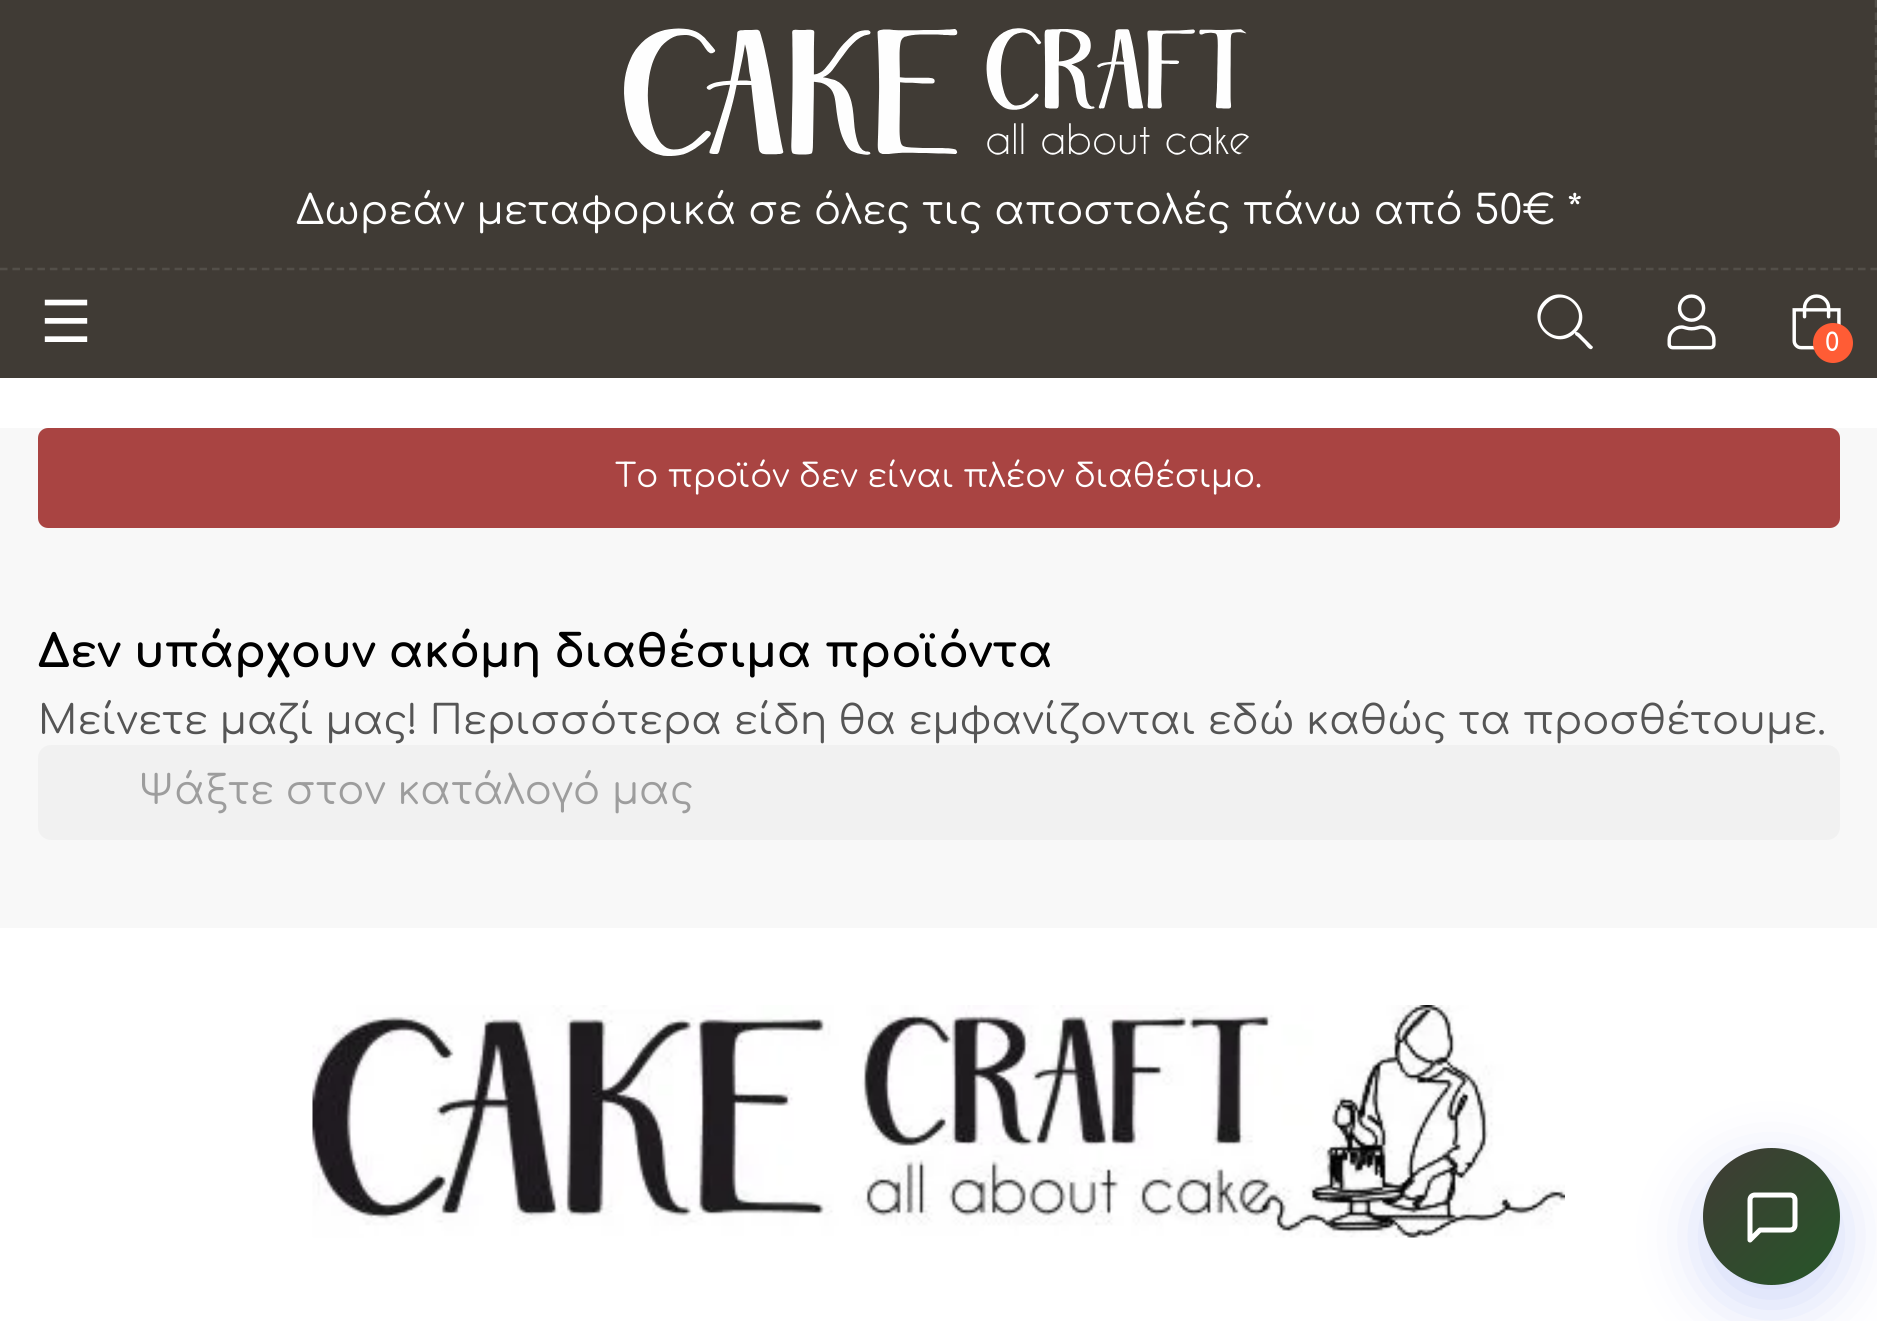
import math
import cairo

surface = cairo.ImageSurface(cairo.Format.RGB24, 1877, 1321)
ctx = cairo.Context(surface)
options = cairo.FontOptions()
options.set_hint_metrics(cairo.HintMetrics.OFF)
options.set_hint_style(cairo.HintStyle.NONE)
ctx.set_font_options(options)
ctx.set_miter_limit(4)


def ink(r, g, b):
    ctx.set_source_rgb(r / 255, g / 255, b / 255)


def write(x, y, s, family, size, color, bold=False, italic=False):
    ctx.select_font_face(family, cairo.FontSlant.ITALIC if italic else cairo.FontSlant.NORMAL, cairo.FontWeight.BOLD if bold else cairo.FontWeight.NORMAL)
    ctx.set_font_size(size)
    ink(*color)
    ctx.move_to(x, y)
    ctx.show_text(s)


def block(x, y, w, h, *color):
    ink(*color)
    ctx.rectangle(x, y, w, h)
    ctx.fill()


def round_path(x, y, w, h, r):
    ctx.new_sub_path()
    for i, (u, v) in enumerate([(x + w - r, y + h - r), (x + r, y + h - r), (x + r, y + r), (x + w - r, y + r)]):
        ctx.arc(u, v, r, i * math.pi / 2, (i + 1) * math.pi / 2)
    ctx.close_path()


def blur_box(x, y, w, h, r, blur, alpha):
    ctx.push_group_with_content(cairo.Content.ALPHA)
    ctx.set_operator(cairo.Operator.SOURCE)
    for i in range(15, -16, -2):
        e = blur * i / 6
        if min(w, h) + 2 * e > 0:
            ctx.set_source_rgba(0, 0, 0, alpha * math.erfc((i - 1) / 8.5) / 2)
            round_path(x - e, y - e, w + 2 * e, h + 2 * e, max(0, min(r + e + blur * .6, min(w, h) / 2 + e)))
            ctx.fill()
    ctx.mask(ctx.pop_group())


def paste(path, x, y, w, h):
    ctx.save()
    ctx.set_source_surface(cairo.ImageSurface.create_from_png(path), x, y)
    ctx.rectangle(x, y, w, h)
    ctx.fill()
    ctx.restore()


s1 = dict(family="Comfortaa", size=40, color=(255, 255, 255))
s2 = dict(family="DejaVu Sans", size=58, color=(255, 255, 255))
s3 = dict(family="Comfortaa SemiBold", size=25, color=(255, 255, 255))
s4 = dict(family="Comfortaa", size=32.5, color=(255, 255, 255))
s5 = dict(family="Comfortaa", size=45, color=(0, 0, 0), bold=True)
s6 = dict(family="Comfortaa", size=40, color=(85, 85, 85))
s7 = dict(family="Comfortaa", size=40, color=(157, 157, 157))

ink(255, 255, 255)
ctx.paint()
block(0, 0, 1877, 378, 64, 59, 53)
ctx.new_path()
ctx.move_to(1876, 0)
ctx.line_to(1876, 157.5)
ink(83, 79, 73)
ctx.set_line_width(2.5)
ctx.set_dash([7.5, 5])
ctx.stroke()
paste("pic1.png", 624, 28, 625, 128)
ctx.new_path()
ctx.move_to(0, 269)
ctx.line_to(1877.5, 269)
ctx.set_dash([7.5, 4.97])
ctx.stroke()
write(296, 224, "Δωρεάν μεταφορικά σε όλες τις αποστολές πάνω από 50€ *", **s1)
write(40, 342, "☰", **s2)
ctx.new_path()
ctx.move_to(1592, 346)
ctx.line_to(1593, 347)
ctx.curve_to(1591, 353, 1586, 345, 1585, 344)
ctx.line_to(1578, 337)
ctx.curve_to(1576, 335, 1575, 336, 1575, 333)
ctx.curve_to(1554, 353, 1524, 321, 1544, 301)
ctx.curve_to(1564, 281, 1596, 311, 1576, 332)
ctx.curve_to(1579, 332, 1581, 335, 1583, 337)
ctx.close_path()
ctx.move_to(1546, 330)
ctx.curve_to(1564, 348, 1591, 321, 1573, 303)
ctx.curve_to(1556, 286, 1529, 313, 1546, 330)
ctx.close_path()
ctx.fill()
paste("pic2.png", 1667, 294, 49, 56)
paste("pic3.png", 1792, 294, 49, 56)
ink(255, 92, 53)
ctx.arc(1833, 343, 20, 0, 2 * math.pi)
ctx.fill()
write(1825, 351, "0", **s3)
block(0, 428, 1877, 500, 248, 248, 248)
ink(169, 68, 66)
round_path(39.5, 429.5, 1799, 97, 8.5)
ctx.fill_preserve()
ctx.set_line_width(3)
ctx.set_dash([])
ctx.stroke()
write(615, 487, "Το προϊόν δεν είναι πλέον διαθέσιμο.", **s4)
write(38, 667, "Δεν υπάρχουν ακόμη διαθέσιμα προϊόντα", **s5)
write(38, 734, "Μείνετε μαζί μας! Περισσότερα είδη θα εμφανίζονται εδώ καθώς τα προσθέτουμε.", **s6)
ink(241, 241, 241)
round_path(38, 745, 1802, 95, 13)
ctx.fill()
write(138, 804, "Ψάξτε στον κατάλογό μας", **s7)
paste("pic4.png", 312, 1005, 1253, 233)
ink(102, 126, 234)
blur_box(1703, 1168, 137, 137, 68.5, 31, 0.3)
gradient = cairo.LinearGradient(1703, 1148, 1840, 1285)
gradient.add_color_stop_rgba(0, 0.251, 0.231, 0.208, 1)
gradient.add_color_stop_rgba(1, 0.149, 0.337, 0.157, 1)
ctx.set_source(gradient)
ctx.arc(1771.5, 1216.5, 68.5, 0, 2 * math.pi)
ctx.fill()
ctx.new_path()
ctx.move_to(1795, 1225)
ctx.curve_to(1795, 1228, 1793, 1230, 1790, 1230)
ctx.line_to(1760, 1230)
ctx.line_to(1750, 1240)
ctx.line_to(1750, 1200)
ctx.curve_to(1750, 1197, 1752, 1195, 1755, 1195)
ctx.line_to(1790, 1195)
ctx.curve_to(1793, 1195, 1795, 1197, 1795, 1200)
ctx.close_path()
ink(255, 255, 255)
ctx.set_line_width(5)
ctx.set_line_cap(cairo.LineCap.ROUND)
ctx.set_line_join(cairo.LineJoin.ROUND)
ctx.stroke()
surface.write_to_png("screenshot.png")
